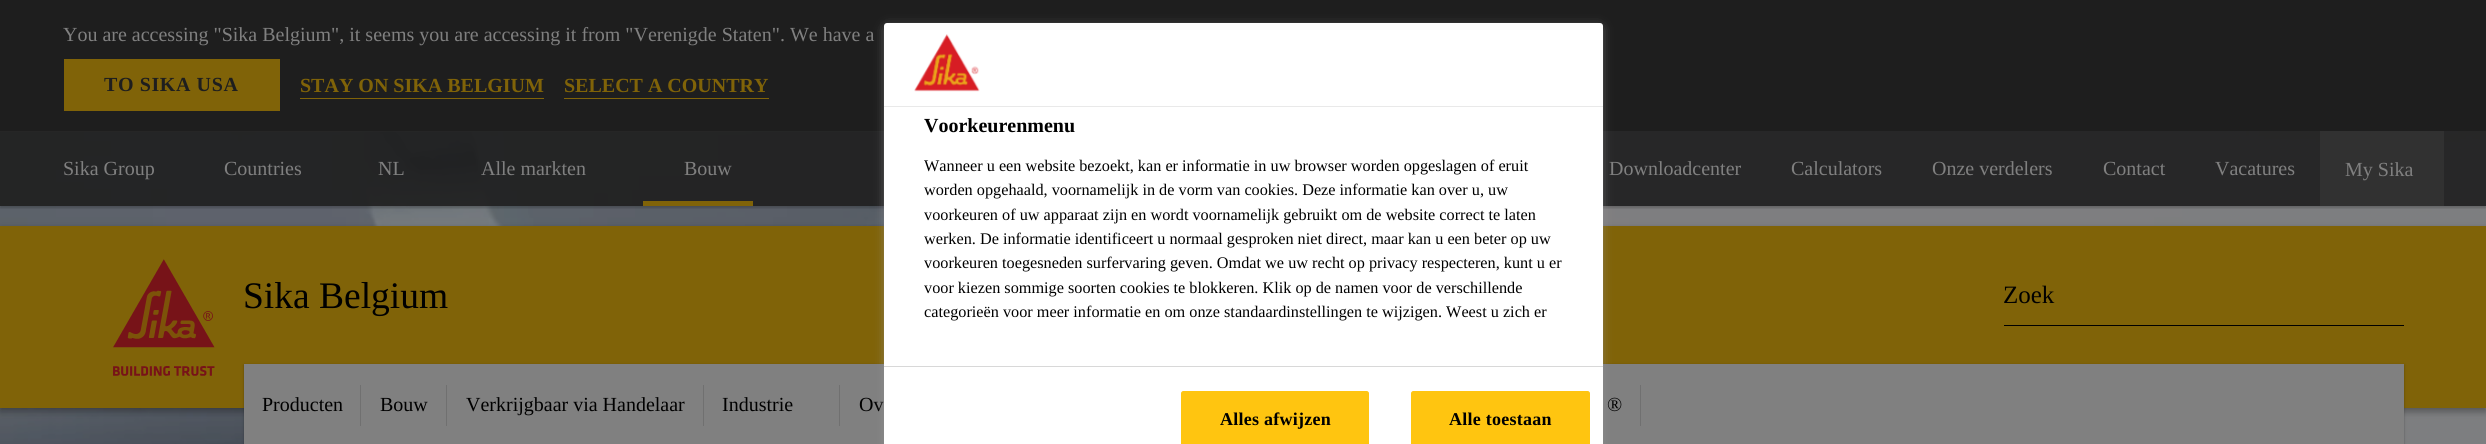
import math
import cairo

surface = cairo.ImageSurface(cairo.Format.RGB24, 2486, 444)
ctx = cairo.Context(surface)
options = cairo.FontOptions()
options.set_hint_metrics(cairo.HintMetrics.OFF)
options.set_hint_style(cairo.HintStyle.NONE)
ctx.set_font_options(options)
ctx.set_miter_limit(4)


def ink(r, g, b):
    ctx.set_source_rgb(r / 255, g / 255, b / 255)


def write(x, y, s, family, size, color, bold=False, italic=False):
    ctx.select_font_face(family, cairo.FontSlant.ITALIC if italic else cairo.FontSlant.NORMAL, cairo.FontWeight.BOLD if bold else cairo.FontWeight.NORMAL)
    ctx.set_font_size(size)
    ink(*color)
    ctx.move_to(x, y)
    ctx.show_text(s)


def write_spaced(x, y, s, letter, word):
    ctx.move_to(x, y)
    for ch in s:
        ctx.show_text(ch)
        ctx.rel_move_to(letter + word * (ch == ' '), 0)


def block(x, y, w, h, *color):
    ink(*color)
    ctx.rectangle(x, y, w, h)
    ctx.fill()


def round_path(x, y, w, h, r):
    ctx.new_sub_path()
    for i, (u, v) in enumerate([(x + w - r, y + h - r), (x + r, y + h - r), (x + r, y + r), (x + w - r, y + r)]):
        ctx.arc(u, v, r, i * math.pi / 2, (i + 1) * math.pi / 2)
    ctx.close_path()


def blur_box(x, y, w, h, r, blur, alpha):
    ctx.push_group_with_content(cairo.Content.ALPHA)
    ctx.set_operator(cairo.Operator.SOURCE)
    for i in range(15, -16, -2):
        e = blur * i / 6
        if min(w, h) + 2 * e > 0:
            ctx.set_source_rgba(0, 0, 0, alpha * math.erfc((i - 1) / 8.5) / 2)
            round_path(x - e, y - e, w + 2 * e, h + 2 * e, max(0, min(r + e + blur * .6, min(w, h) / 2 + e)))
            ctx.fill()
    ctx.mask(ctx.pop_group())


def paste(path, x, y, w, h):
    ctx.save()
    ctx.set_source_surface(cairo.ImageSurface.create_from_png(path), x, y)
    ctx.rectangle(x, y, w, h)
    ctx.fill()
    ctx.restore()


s1 = dict(family="Liberation Serif", size=20, color=(128, 128, 128))
s2 = dict(family="Liberation Serif", size=20, color=(128, 99, 8), bold=True)
s3 = dict(family="Liberation Serif", size=37.5, color=(0, 0, 0))
s4 = dict(family="Liberation Serif", size=25, color=(0, 0, 0))
s5 = dict(family="Liberation Serif", size=20, color=(0, 0, 0))
s6 = dict(family="Liberation Serif", size=20, color=(0, 0, 0), bold=True)
s7 = dict(family="Liberation Serif", size=16.25, color=(0, 0, 0))

ink(128, 128, 128)
ctx.paint()
block(0, 0, 2486, 131, 30, 30, 30)
write(63, 41, "You are accessing \"Sika Belgium\", it seems you are accessing it from \"Verenigde Staten\". We have a", **s1)
block(64, 59, 216, 52, 128, 99, 8)
ctx.select_font_face("Liberation Serif", cairo.FontSlant.NORMAL, cairo.FontWeight.BOLD)
ink(30, 30, 30)
write_spaced(104, 91, "TO SIKA USA", 0.6, 0)
write(300, 92, "STAY ON SIKA BELGIUM", **s2)
block(300, 98, 244, 1, 128, 99, 8)
write(564, 92, "SELECT A COUNTRY", **s2)
block(564, 98, 205, 1, 128, 99, 8)
paste("pic2.png", 0, 131, 2486, 313)
ctx.save()
ctx.rectangle(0, 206, 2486, 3)
ctx.clip()
ink(0, 0, 0)
blur_box(0, 133, 2486, 75, 0, 1, 0.2)
ctx.restore()
ctx.set_source_rgba(0.118, 0.118, 0.118, 0.9)
ctx.rectangle(0, 131, 2486, 75)
ctx.fill()
write(63, 175, "Sika Group", **s1)
write(224, 175, "Countries", **s1)
write(378, 175, "NL", **s1)
write(481, 175, "Alle markten", **s1)
block(643, 201, 110, 5, 128, 99, 8)
write(684, 175, "Bouw", **s1)
write(1609, 175, "Downloadcenter", **s1)
write(1791, 175, "Calculators", **s1)
write(1932, 175, "Onze verdelers", **s1)
write(2103, 175, "Contact", **s1)
write(2215, 175, "Vacatures", **s1)
block(2320, 131, 124, 75, 49, 49, 49)
write(2345, 176, "My Sika", **s1)
ink(0, 0, 0)
blur_box(0, 230, 2486, 181, 0, 4, 0.23)
blur_box(0, 230, 2486, 181, 0, 4, 0.16)
block(0, 226, 2486, 182, 128, 99, 8)
paste("pic1.png", 113, 259, 102, 117)
write(243, 308, "Sika Belgium", **s3)
block(2004, 325, 400, 1, 0, 0, 0)
write(2003, 303, "Zoek", **s4)
ink(0, 0, 0)
blur_box(244, 365, 2160, 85, 0, 2, 0.1)
blur_box(244, 365, 2160, 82, 0, 1, 0.2)
block(244, 364, 2160, 80, 128, 128, 128)
write(262, 411, "Producten", **s5)
block(360, 385, 1, 41, 112, 112, 112)
write(380, 411, "Bouw", **s5)
block(446, 385, 1, 41, 112, 112, 112)
write(466, 411, "Verkrijgbaar via Handelaar", **s5)
block(703, 385, 1, 41, 112, 112, 112)
write(722, 411, "Industrie", **s5)
block(839, 385, 1, 41, 112, 112, 112)
write(859, 411, "Ov", **s5)
write(1607, 411, "®", **s5)
block(1640, 385, 1, 41, 112, 112, 112)
ink(153, 153, 153)
blur_box(888, 29, 711, 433, 0, 6, 1)
ink(255, 255, 255)
round_path(884, 23, 719, 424, 3)
ctx.fill()
block(884, 106, 719, 1, 233, 233, 233)
paste("pic3.png", 914, 34, 66, 58)
write(924, 132, "Voorkeurenmenu", **s6)
write(924, 171, "Wanneer u een website bezoekt, kan er informatie in uw browser worden opgeslagen of eruit", **s7)
write(924, 195, "worden opgehaald, voornamelijk in de vorm van cookies. Deze informatie kan over u, uw", **s7)
write(924, 220, "voorkeuren of uw apparaat zijn en wordt voornamelijk gebruikt om de website correct te laten", **s7)
write(924, 244, "werken. De informatie identificeert u normaal gesproken niet direct, maar kan u een beter op uw", **s7)
write(924, 268, "voorkeuren toegesneden surfervaring geven. Omdat we uw recht op privacy respecteren, kunt u er", **s7)
write(924, 293, "voor kiezen sommige soorten cookies te blokkeren. Klik op de namen voor de verschillende", **s7)
write(924, 317, "categorieën voor meer informatie en om onze standaardinstellingen te wijzigen. Weest u zich er", **s7)
block(884, 366, 719, 1, 216, 216, 216)
ink(255, 197, 16)
round_path(1181.5, 391.5, 187, 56, 2)
ctx.fill_preserve()
ctx.set_line_width(1)
ctx.stroke()
ctx.select_font_face("Liberation Serif", cairo.FontSlant.NORMAL, cairo.FontWeight.BOLD)
ctx.set_font_size(18)
ink(0, 0, 0)
write_spaced(1220, 425, "Alles afwijzen", 0.25, 0)
ink(255, 197, 16)
round_path(1411.5, 391.5, 178, 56, 2)
ctx.fill_preserve()
ctx.stroke()
ink(0, 0, 0)
write_spaced(1449, 425, "Alle toestaan", 0.25, 0)
surface.write_to_png("screenshot.png")
